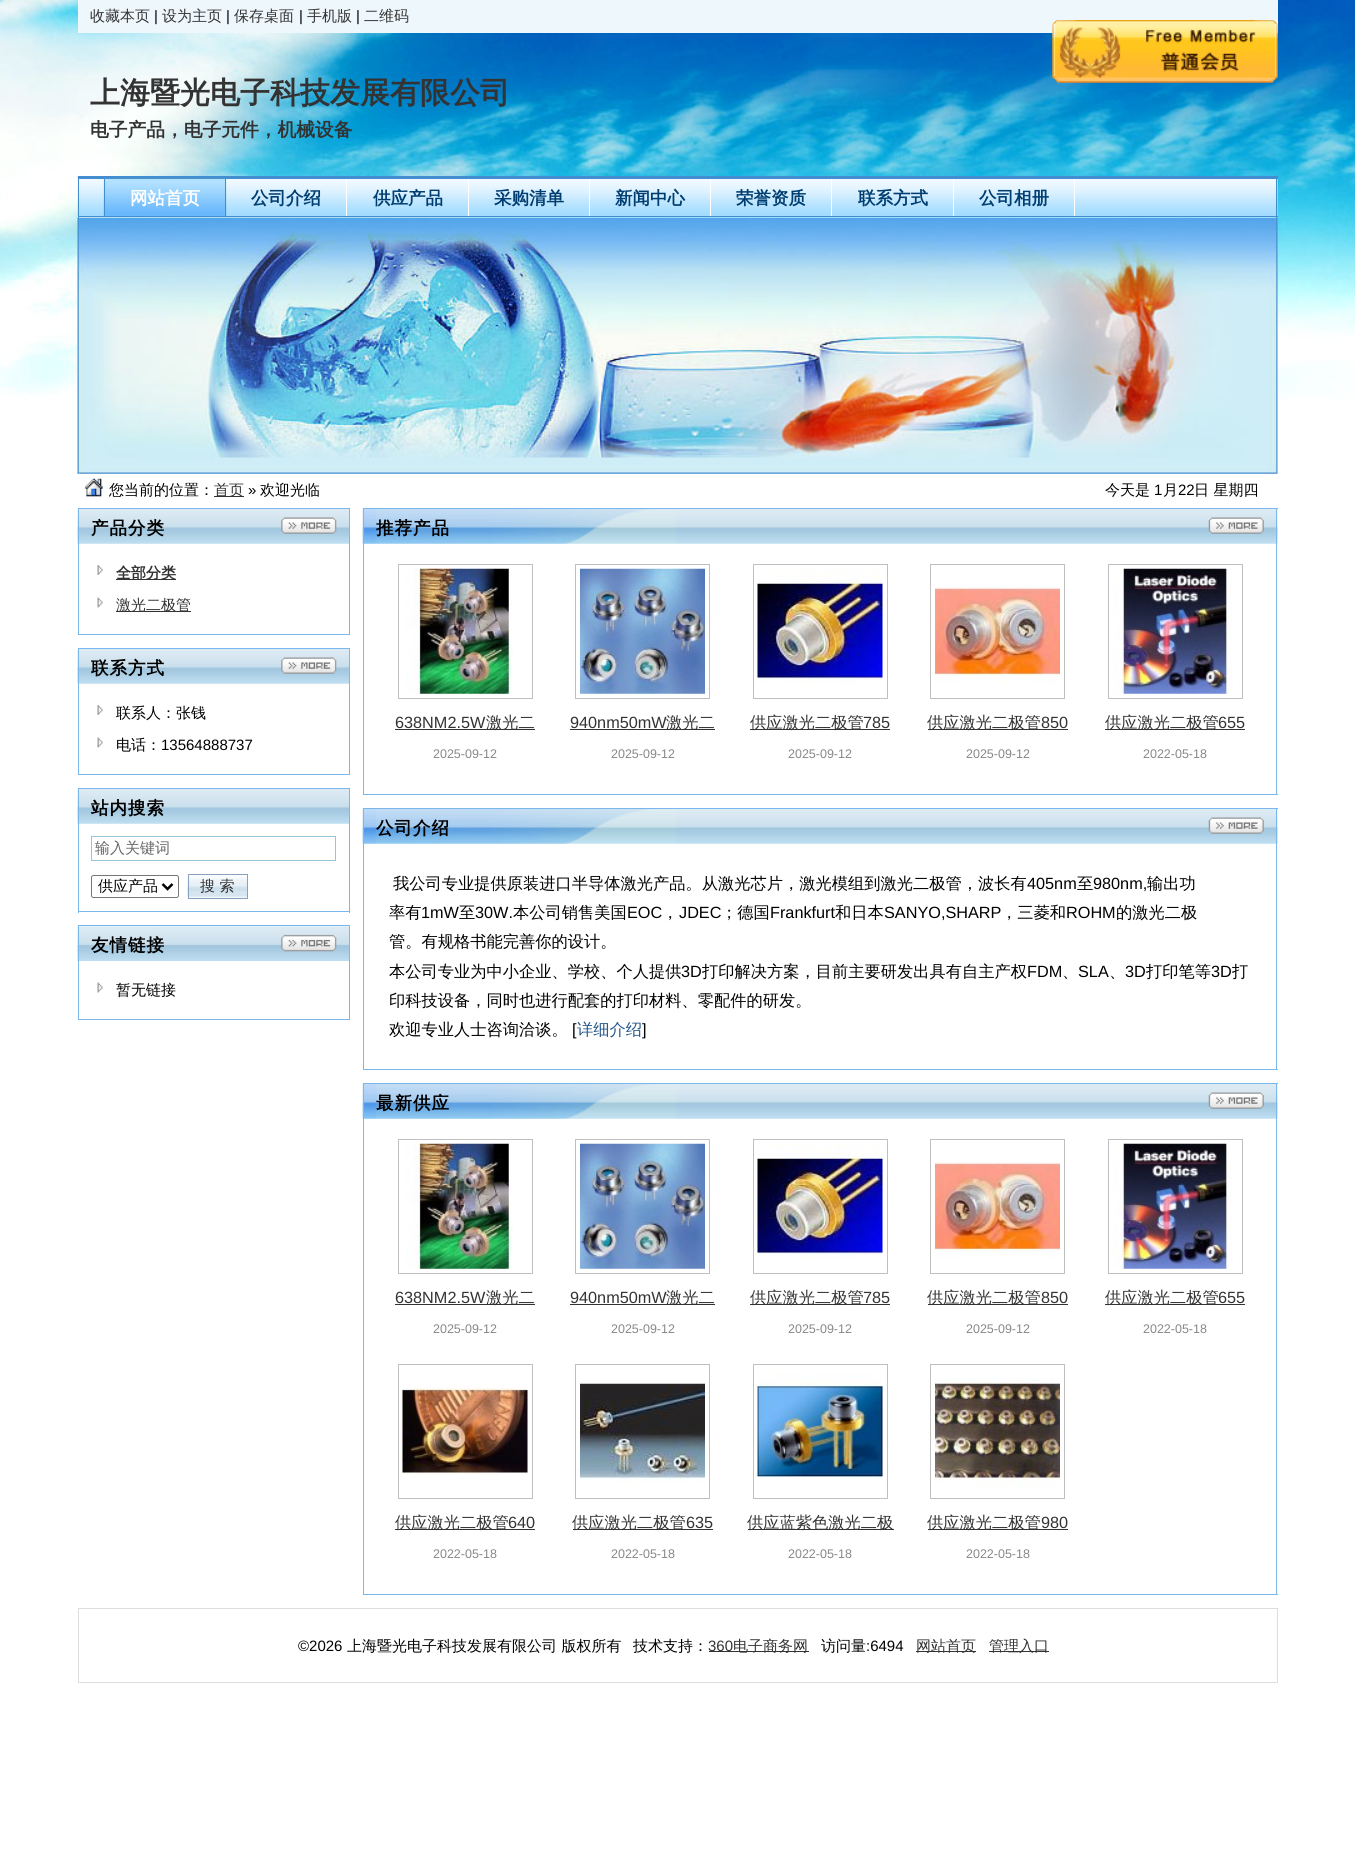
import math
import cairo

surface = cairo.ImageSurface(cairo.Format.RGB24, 1355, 1870)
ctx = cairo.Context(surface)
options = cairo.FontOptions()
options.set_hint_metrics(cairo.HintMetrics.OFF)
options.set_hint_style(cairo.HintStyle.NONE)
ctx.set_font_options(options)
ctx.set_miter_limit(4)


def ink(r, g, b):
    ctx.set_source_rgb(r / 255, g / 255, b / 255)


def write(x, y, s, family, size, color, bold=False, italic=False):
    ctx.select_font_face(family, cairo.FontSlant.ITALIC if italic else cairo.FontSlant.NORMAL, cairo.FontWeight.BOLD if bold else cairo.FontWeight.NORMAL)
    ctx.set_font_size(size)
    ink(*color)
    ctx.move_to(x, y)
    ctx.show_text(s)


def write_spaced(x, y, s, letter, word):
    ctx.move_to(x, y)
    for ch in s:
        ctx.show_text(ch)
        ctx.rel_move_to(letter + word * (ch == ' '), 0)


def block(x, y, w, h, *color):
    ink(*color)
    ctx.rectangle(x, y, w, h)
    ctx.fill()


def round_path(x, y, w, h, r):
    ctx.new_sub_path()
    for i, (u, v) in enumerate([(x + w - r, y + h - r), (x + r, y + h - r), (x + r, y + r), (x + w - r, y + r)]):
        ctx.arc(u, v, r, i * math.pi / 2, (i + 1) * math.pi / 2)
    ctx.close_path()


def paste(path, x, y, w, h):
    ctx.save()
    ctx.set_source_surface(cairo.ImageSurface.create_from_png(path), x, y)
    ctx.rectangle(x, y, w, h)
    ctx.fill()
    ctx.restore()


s1 = dict(family="WenQuanYi Zen Hei Medium", size=15, color=(51, 51, 51))
s2 = dict(family="Liberation Sans", size=15, color=(0, 0, 0))
s3 = dict(family="WenQuanYi Zen Hei", size=30, color=(51, 51, 51), bold=True)
s4 = dict(family="WenQuanYi Zen Hei", size=18.75, color=(51, 51, 51), bold=True)
s5 = dict(family="WenQuanYi Zen Hei", size=17.5, color=(255, 255, 255), bold=True)
s6 = dict(family="WenQuanYi Zen Hei", size=17.5, color=(0, 61, 112), bold=True)
s7 = dict(family="WenQuanYi Zen Hei Medium", size=15, color=(0, 0, 0))
s8 = dict(family="WenQuanYi Zen Hei", size=15, color=(51, 51, 51), bold=True)
s9 = dict(family="WenQuanYi Zen Hei Medium", size=15, color=(102, 102, 102))
s10 = dict(family="Liberation Sans", size=16.25, color=(51, 51, 51))
s11 = dict(family="WenQuanYi Zen Hei Medium", size=16.25, color=(51, 51, 51))
s12 = dict(family="Liberation Sans", size=12.5, color=(136, 136, 136))
s13 = dict(family="WenQuanYi Zen Hei Medium", size=16.25, color=(0, 0, 0))
s14 = dict(family="Liberation Sans", size=16.25, color=(0, 0, 0))
s15 = dict(family="WenQuanYi Zen Hei Medium", size=16.25, color=(34, 85, 136))
s16 = dict(family="Liberation Sans", size=15, color=(51, 51, 51))

ink(255, 255, 255)
ctx.paint()
paste("pic1.png", 0, 0, 1355, 401)
block(78, 0, 1200, 33, 238, 247, 251)
write(90, 21, "收藏本页", **s1)
write(154, 21, "|", **s2)
write(162, 21, "设为主页", **s1)
write(226, 21, "|", **s2)
write(234, 21, "保存桌面", **s1)
write(299, 21, "|", **s2)
write(307, 21, "手机版", **s1)
write(356, 21, "|", **s2)
write(364, 21, "二维码", **s1)
paste("pic2.png", 1052, 20, 226, 63)
paste("pic3.png", 1052, 20, 226, 63)
write(90, 103, "上海暨光电子科技发展有限公司", **s3)
write(90, 136, "电子产品，电子元件，机械设备", **s4)
paste("pic6.png", 77, 217, 1201, 257)
paste("pic4.png", 77, 176, 1201, 42)
block(78, 176, 1200, 3, 67, 142, 206)
block(1276, 176, 1, 42, 67, 142, 206)
block(78, 216, 1200, 1, 67, 142, 206)
block(78, 176, 1, 42, 67, 142, 206)
paste("pic5.png", 103, 178, 124, 38)
block(225, 179, 1, 37, 67, 142, 206)
block(104, 179, 1, 37, 67, 142, 206)
write(130, 204, "网站首页", **s5)
block(346, 179, 1, 37, 255, 255, 255)
write(251, 204, "公司介绍", **s6)
block(468, 179, 1, 37, 255, 255, 255)
write(373, 204, "供应产品", **s6)
block(589, 179, 1, 37, 255, 255, 255)
write(494, 204, "采购清单", **s6)
block(710, 179, 1, 37, 255, 255, 255)
write(615, 204, "新闻中心", **s6)
block(831, 179, 1, 37, 255, 255, 255)
write(736, 204, "荣誉资质", **s6)
block(953, 179, 1, 37, 255, 255, 255)
write(858, 204, "联系方式", **s6)
block(1074, 179, 1, 37, 255, 255, 255)
write(979, 204, "公司相册", **s6)
paste("pic7.png", 84, 478, 19, 19)
write(109, 495, "您当前的位置：", **s7)
block(214, 496, 30, 1, 51, 51, 51)
write(214, 495, "首页", **s1)
write(248, 495, "»", **s2)
write(260, 495, "欢迎光临", **s7)
write(1105, 495, "今天是", **s7)
write(1154, 495, "1", **s2)
write(1163, 495, "月", **s7)
write(1178, 495, "22", **s2)
write(1194, 495, "日 星期四", **s7)
paste("pic8.png", 77, 508, 272, 36)
block(78, 508, 272, 1, 121, 183, 236)
block(349, 508, 1, 127, 121, 183, 236)
block(78, 508, 1, 36, 121, 183, 236)
ctx.select_font_face("WenQuanYi Zen Hei", cairo.FontSlant.NORMAL, cairo.FontWeight.BOLD)
ctx.set_font_size(17.5)
ink(0, 0, 0)
write_spaced(91, 534, "产品分类", 1, 0)
paste("pic9.png", 281, 517, 56, 17)
block(78, 634, 272, 1, 121, 183, 236)
block(78, 544, 1, 91, 121, 183, 236)
paste("pic10.png", 97, 565, 6, 10)
block(116, 579, 60, 1, 51, 51, 51)
write(116, 578, "全部分类", **s8)
paste("pic11.png", 97, 597, 6, 11)
block(116, 611, 75, 1, 51, 51, 51)
write(116, 610, "激光二极管", **s1)
paste("pic8.png", 77, 648, 272, 36)
block(78, 648, 272, 1, 121, 183, 236)
block(349, 648, 1, 127, 121, 183, 236)
block(78, 648, 1, 36, 121, 183, 236)
ctx.select_font_face("WenQuanYi Zen Hei", cairo.FontSlant.NORMAL, cairo.FontWeight.BOLD)
ctx.set_font_size(17.5)
ink(0, 0, 0)
write_spaced(91, 674, "联系方式", 1, 0)
paste("pic9.png", 281, 657, 56, 17)
block(78, 774, 272, 1, 121, 183, 236)
block(78, 684, 1, 91, 121, 183, 236)
paste("pic10.png", 97, 705, 6, 10)
write(116, 718, "联系人：张钱", **s7)
paste("pic11.png", 97, 737, 6, 11)
write(116, 750, "电话：", **s7)
write(161, 750, "13564888737", **s2)
paste("pic8.png", 77, 788, 272, 36)
block(78, 788, 272, 1, 121, 183, 236)
block(349, 788, 1, 125, 121, 183, 236)
block(78, 788, 1, 36, 121, 183, 236)
ctx.select_font_face("WenQuanYi Zen Hei", cairo.FontSlant.NORMAL, cairo.FontWeight.BOLD)
ctx.set_font_size(17.5)
ink(0, 0, 0)
write_spaced(91, 814, "站内搜索", 1, 0)
block(78, 911, 272, 1, 121, 183, 236)
block(78, 824, 1, 89, 121, 183, 236)
ctx.rectangle(91.5, 836.5, 244, 24)
ink(153, 196, 213)
ctx.set_line_width(1)
ctx.stroke()
write(95, 853, "输入关键词", **s9)
round_path(91.5, 875.5, 87, 22, 2)
ink(118, 118, 118)
ctx.stroke()
ctx.new_path()
ctx.move_to(162.5, 884)
ctx.line_to(167.5, 889)
ctx.line_to(172.5, 884)
ink(0, 0, 0)
ctx.set_line_width(2.5)
ctx.stroke()
write(98, 891, "供应产品", **s7)
paste("pic12.png", 187, 876, 60, 22)
ctx.rectangle(188.5, 874.5, 59, 24)
ink(134, 162, 192)
ctx.set_line_width(1)
ctx.stroke()
write(200, 891, "搜 索", **s1)
paste("pic13.png", 77, 926, 272, 36)
block(78, 925, 272, 1, 121, 183, 236)
block(349, 925, 1, 95, 121, 183, 236)
block(78, 925, 1, 36, 121, 183, 236)
ctx.select_font_face("WenQuanYi Zen Hei", cairo.FontSlant.NORMAL, cairo.FontWeight.BOLD)
ctx.set_font_size(17.5)
ink(0, 0, 0)
write_spaced(91, 951, "友情链接", 1, 0)
paste("pic14.png", 281, 934, 56, 18)
block(79, 961, 270, 1, 255, 255, 255)
block(78, 1019, 272, 1, 121, 183, 236)
block(78, 961, 1, 59, 121, 183, 236)
paste("pic11.png", 97, 982, 6, 11)
write(116, 995, "暂无链接", **s7)
paste("pic15.png", 362, 508, 916, 36)
block(363, 508, 915, 1, 121, 183, 236)
block(1276, 508, 1, 287, 121, 183, 236)
block(363, 508, 1, 36, 121, 183, 236)
ctx.select_font_face("WenQuanYi Zen Hei", cairo.FontSlant.NORMAL, cairo.FontWeight.BOLD)
ctx.set_font_size(17.5)
ink(0, 0, 0)
write_spaced(376, 534, "推荐产品", 1, 0)
paste("pic16.png", 1208, 517, 56, 17)
block(363, 794, 915, 1, 121, 183, 236)
block(363, 544, 1, 251, 121, 183, 236)
ctx.rectangle(398.5, 564.5, 134, 134)
ink(192, 192, 192)
ctx.stroke()
paste("pic17.png", 406, 568, 107, 126)
write(395, 728, "638NM2.5W", **s10)
block(395, 729, 140, 1, 51, 51, 51)
write(486, 728, "激光二", **s11)
write(433, 758, "2025-09-12", **s12)
ctx.rectangle(575.5, 564.5, 134, 134)
ink(192, 192, 192)
ctx.stroke()
paste("pic18.png", 580, 568, 125, 126)
write(570, 728, "940nm50mW", **s10)
block(570, 729, 145, 1, 51, 51, 51)
write(666, 728, "激光二", **s11)
write(611, 758, "2025-09-12", **s12)
ctx.rectangle(753.5, 564.5, 134, 134)
ink(192, 192, 192)
ctx.stroke()
paste("pic19.png", 757, 569, 126, 115)
block(750, 729, 140, 1, 51, 51, 51)
write(750, 728, "供应激光二极管", **s11)
write(863, 728, "785", **s10)
write(788, 758, "2025-09-12", **s12)
ctx.rectangle(930.5, 564.5, 134, 134)
ink(192, 192, 192)
ctx.stroke()
paste("pic20.png", 935, 587, 125, 97)
block(928, 729, 140, 1, 51, 51, 51)
write(927, 728, "供应激光二极管", **s11)
write(1041, 728, "850", **s10)
write(966, 758, "2025-09-12", **s12)
ctx.rectangle(1108.5, 564.5, 134, 134)
ink(192, 192, 192)
ctx.stroke()
paste("pic21.png", 1113, 568, 120, 126)
block(1105, 729, 140, 1, 51, 51, 51)
write(1105, 728, "供应激光二极管", **s11)
write(1218, 728, "655", **s10)
write(1143, 758, "2022-05-18", **s12)
paste("pic22.png", 362, 808, 916, 36)
block(363, 808, 915, 1, 121, 183, 236)
block(1276, 808, 1, 262, 121, 183, 236)
block(363, 808, 1, 36, 121, 183, 236)
ctx.select_font_face("WenQuanYi Zen Hei", cairo.FontSlant.NORMAL, cairo.FontWeight.BOLD)
ctx.set_font_size(17.5)
ink(0, 0, 0)
write_spaced(376, 834, "公司介绍", 1, 0)
paste("pic16.png", 1208, 817, 56, 17)
block(363, 1069, 915, 1, 121, 183, 236)
block(363, 844, 1, 226, 121, 183, 236)
write(393, 889, "我公司专业提供原装进口半导体激光产品。从激光芯片，激光模组到激光二极管，波长有", **s13)
write(1027, 889, "405nm", **s14)
write(1077, 889, "至", **s13)
write(1093, 889, "980nm,", **s14)
write(1147, 889, "输出功", **s13)
write(389, 918, "率有", **s13)
write(421, 918, "1mW", **s14)
write(459, 918, "至", **s13)
write(475, 918, "30W.", **s14)
write(513, 918, "本公司销售美国", **s13)
write(627, 918, "EOC", **s14)
write(662, 918, "，", **s13)
write(679, 918, "JDEC", **s14)
write(721, 918, "；德国", **s13)
write(770, 918, "Frankfurt", **s14)
write(835, 918, "和日本", **s13)
write(884, 918, "SANYO,SHARP", **s14)
write(1001, 918, "，三菱和", **s13)
write(1066, 918, "ROHM", **s14)
write(1116, 918, "的激光二极", **s13)
write(389, 947, "管。有规格书能完善你的设计。", **s13)
write(389, 977, "本公司专业为中小企业、学校、个人提供", **s13)
write(681, 977, "3D", **s14)
write(702, 977, "打印解决方案，目前主要研发出具有自主产权", **s13)
write(1027, 977, "FDM", **s14)
write(1062, 977, "、", **s13)
write(1078, 977, "SLA", **s14)
write(1109, 977, "、", **s13)
write(1125, 977, "3D", **s14)
write(1146, 977, "打印笔等", **s13)
write(1211, 977, "3D", **s14)
write(1232, 977, "打", **s13)
write(389, 1006, "印科技设备，同时也进行配套的打印材料、零配件的研发。", **s13)
write(389, 1035, "欢迎专业人士咨询洽谈。", **s13)
write(572, 1035, "[", **s14)
write(577, 1035, "详细介绍", **s15)
write(642, 1035, "]", **s14)
paste("pic15.png", 362, 1083, 916, 36)
block(363, 1083, 915, 1, 121, 183, 236)
block(1276, 1083, 1, 512, 121, 183, 236)
block(363, 1083, 1, 36, 121, 183, 236)
ctx.select_font_face("WenQuanYi Zen Hei", cairo.FontSlant.NORMAL, cairo.FontWeight.BOLD)
ctx.set_font_size(17.5)
ink(0, 0, 0)
write_spaced(376, 1109, "最新供应", 1, 0)
paste("pic16.png", 1208, 1092, 56, 17)
block(363, 1594, 915, 1, 121, 183, 236)
block(363, 1119, 1, 476, 121, 183, 236)
ctx.rectangle(398.5, 1139.5, 134, 134)
ink(192, 192, 192)
ctx.stroke()
paste("pic23.png", 406, 1143, 107, 126)
write(395, 1303, "638NM2.5W", **s10)
block(395, 1304, 140, 1, 51, 51, 51)
write(486, 1303, "激光二", **s11)
write(433, 1333, "2025-09-12", **s12)
ctx.rectangle(575.5, 1139.5, 134, 134)
ink(192, 192, 192)
ctx.stroke()
paste("pic24.png", 580, 1143, 125, 126)
write(570, 1303, "940nm50mW", **s10)
block(570, 1304, 145, 1, 51, 51, 51)
write(666, 1303, "激光二", **s11)
write(611, 1333, "2025-09-12", **s12)
ctx.rectangle(753.5, 1139.5, 134, 134)
ink(192, 192, 192)
ctx.stroke()
paste("pic25.png", 757, 1144, 126, 115)
block(750, 1304, 140, 1, 51, 51, 51)
write(750, 1303, "供应激光二极管", **s11)
write(863, 1303, "785", **s10)
write(788, 1333, "2025-09-12", **s12)
ctx.rectangle(930.5, 1139.5, 134, 134)
ink(192, 192, 192)
ctx.stroke()
paste("pic26.png", 935, 1162, 125, 97)
block(928, 1304, 140, 1, 51, 51, 51)
write(927, 1303, "供应激光二极管", **s11)
write(1041, 1303, "850", **s10)
write(966, 1333, "2025-09-12", **s12)
ctx.rectangle(1108.5, 1139.5, 134, 134)
ink(192, 192, 192)
ctx.stroke()
paste("pic27.png", 1113, 1143, 120, 126)
block(1105, 1304, 140, 1, 51, 51, 51)
write(1105, 1303, "供应激光二极管", **s11)
write(1218, 1303, "655", **s10)
write(1143, 1333, "2022-05-18", **s12)
ctx.rectangle(398.5, 1364.5, 134, 134)
ink(192, 192, 192)
ctx.stroke()
paste("pic28.png", 402, 1387, 126, 88)
block(395, 1529, 140, 1, 51, 51, 51)
write(395, 1528, "供应激光二极管", **s11)
write(508, 1528, "640", **s10)
write(433, 1558, "2022-05-18", **s12)
ctx.rectangle(575.5, 1364.5, 134, 134)
ink(192, 192, 192)
ctx.stroke()
paste("pic29.png", 580, 1383, 125, 101)
block(573, 1529, 140, 1, 51, 51, 51)
write(572, 1528, "供应激光二极管", **s11)
write(686, 1528, "635", **s10)
write(611, 1558, "2022-05-18", **s12)
ctx.rectangle(753.5, 1364.5, 134, 134)
ink(192, 192, 192)
ctx.stroke()
paste("pic30.png", 757, 1372, 126, 107)
block(748, 1529, 146, 1, 51, 51, 51)
write(747, 1528, "供应蓝紫色激光二极", **s11)
write(788, 1558, "2022-05-18", **s12)
ctx.rectangle(930.5, 1364.5, 134, 134)
ink(192, 192, 192)
ctx.stroke()
paste("pic31.png", 935, 1378, 125, 111)
block(928, 1529, 140, 1, 51, 51, 51)
write(927, 1528, "供应激光二极管", **s11)
write(1041, 1528, "980", **s10)
write(966, 1558, "2022-05-18", **s12)
ctx.rectangle(78.5, 1608.5, 1199, 74)
ink(221, 221, 221)
ctx.stroke()
write(298, 1651, "©2026", **s2)
write(347, 1651, "上海暨光电子科技发展有限公司 版权所有", **s7)
write(633, 1651, "技术支持：", **s7)
block(709, 1651, 100, 1, 51, 51, 51)
write(708, 1651, "360", **s16)
write(733, 1651, "电子商务网", **s1)
write(821, 1651, "访问量", **s7)
write(866, 1651, ":6494", **s2)
block(916, 1651, 60, 1, 51, 51, 51)
write(916, 1651, "网站首页", **s1)
block(989, 1651, 60, 1, 51, 51, 51)
write(989, 1651, "管理入口", **s1)
surface.write_to_png("screenshot.png")
